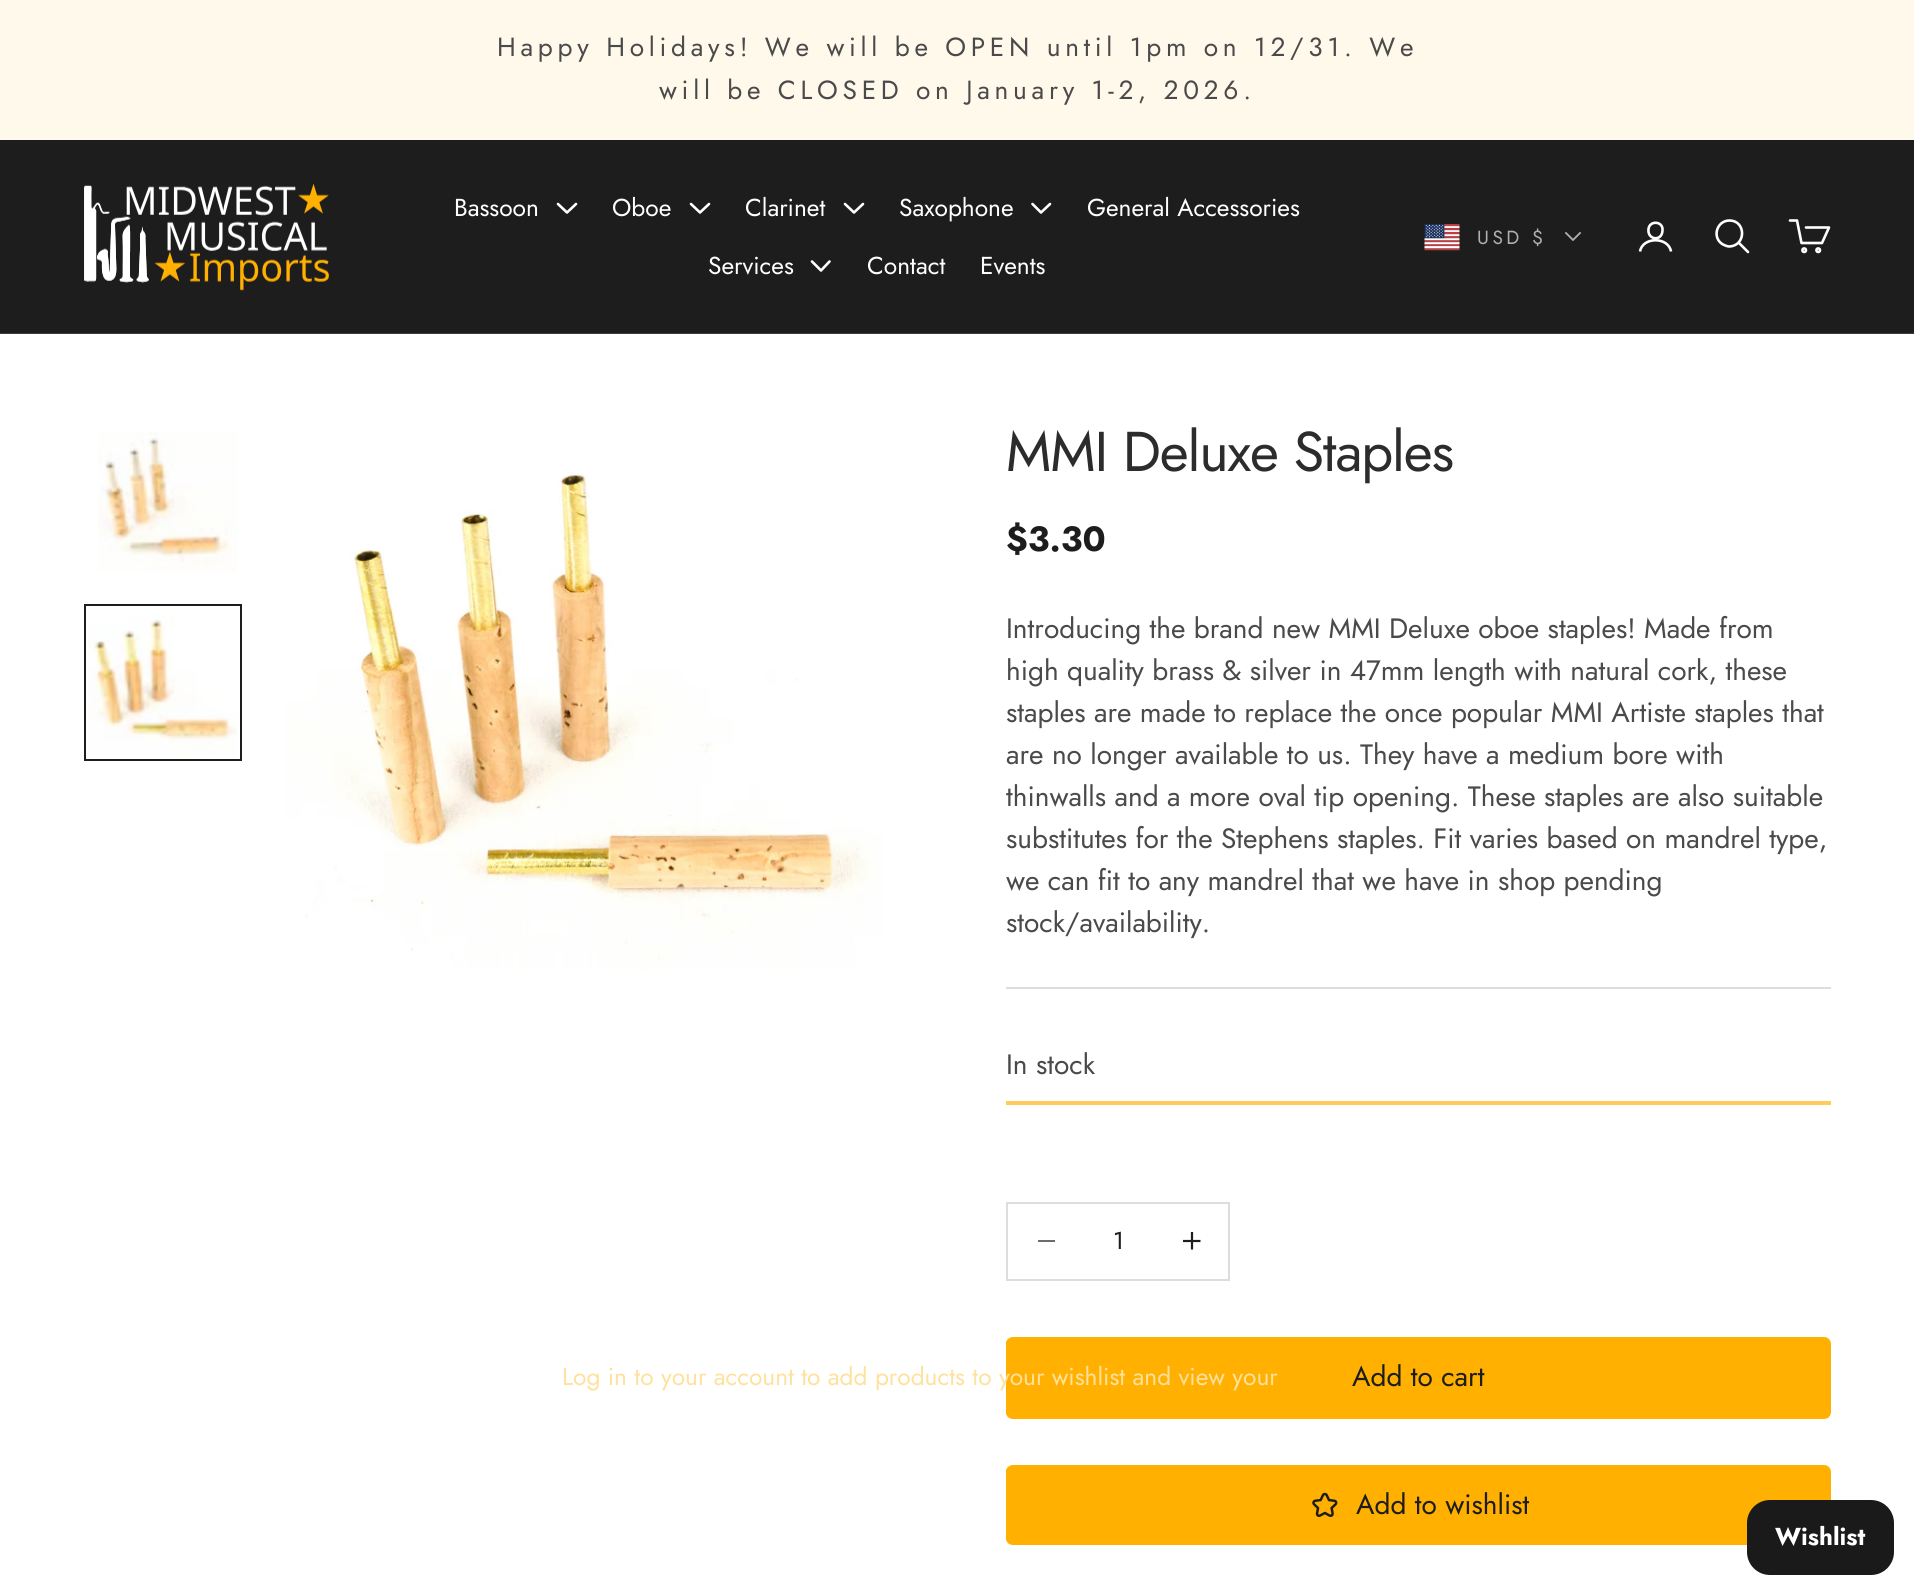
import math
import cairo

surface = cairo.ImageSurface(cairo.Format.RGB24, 1914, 1596)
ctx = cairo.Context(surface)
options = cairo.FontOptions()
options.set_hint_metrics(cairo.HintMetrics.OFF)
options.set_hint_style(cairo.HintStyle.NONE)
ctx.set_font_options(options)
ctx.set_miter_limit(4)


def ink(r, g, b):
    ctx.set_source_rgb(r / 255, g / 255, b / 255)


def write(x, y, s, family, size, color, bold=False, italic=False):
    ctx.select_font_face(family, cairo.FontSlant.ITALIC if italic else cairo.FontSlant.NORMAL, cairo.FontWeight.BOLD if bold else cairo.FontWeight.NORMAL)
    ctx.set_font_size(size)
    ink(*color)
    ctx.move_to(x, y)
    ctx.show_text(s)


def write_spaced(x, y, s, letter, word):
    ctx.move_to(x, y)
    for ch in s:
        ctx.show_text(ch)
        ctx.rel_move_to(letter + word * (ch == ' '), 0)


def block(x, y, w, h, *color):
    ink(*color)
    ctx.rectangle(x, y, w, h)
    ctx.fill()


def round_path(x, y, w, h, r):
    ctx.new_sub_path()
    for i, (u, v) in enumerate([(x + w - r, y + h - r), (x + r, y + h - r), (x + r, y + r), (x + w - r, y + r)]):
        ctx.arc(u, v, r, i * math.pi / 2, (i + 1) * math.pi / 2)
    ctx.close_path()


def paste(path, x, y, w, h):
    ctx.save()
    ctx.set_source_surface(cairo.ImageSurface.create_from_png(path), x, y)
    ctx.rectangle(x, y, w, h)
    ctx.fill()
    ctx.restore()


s1 = dict(family="Jost", size=24.5, color=(255, 255, 255))
s2 = dict(family="Jost", size=35, color=(29, 29, 29), bold=True)
s3 = dict(family="Jost", size=28, color=(74, 74, 74))
s4 = dict(family="Jost", size=24.5, color=(29, 29, 29))
s5 = dict(family="Jost", size=28, color=(29, 29, 29))
s6 = dict(family="Jost", size=24.5, color=(255, 225, 158))
s7 = dict(family="Jost", size=24.5, color=(255, 255, 255), bold=True)

ink(255, 255, 255)
ctx.paint()
block(0, 0, 1914, 140, 255, 249, 236)
ctx.select_font_face("Jost")
ctx.set_font_size(26.25)
ink(74, 74, 74)
write_spaced(497, 56, "Happy Holidays! We will be OPEN until 1pm on 12/31. We", 4.73, 0)
write_spaced(659, 99, "will be CLOSED on January 1-2, 2026.", 4.73, 0)
block(0, 140, 1914, 193, 29, 29, 29)
block(0, 333, 1914, 1, 63, 63, 63)
paste("pic1.png", 84, 183, 245, 108)
write(454, 216, "Bassoon", **s1)
ctx.new_path()
ctx.move_to(558, 204)
ctx.line_to(567, 212.5)
ctx.line_to(576, 204)
ctx.set_line_width(2.6)
ctx.set_line_cap(cairo.LineCap.ROUND)
ctx.set_line_join(cairo.LineJoin.ROUND)
ctx.stroke()
write(612, 216, "Oboe", **s1)
ctx.new_path()
ctx.move_to(691, 204)
ctx.line_to(700, 212.5)
ctx.line_to(709, 204)
ctx.stroke()
write(745, 216, "Clarinet", **s1)
ctx.new_path()
ctx.move_to(845, 204)
ctx.line_to(854, 212.5)
ctx.line_to(863, 204)
ctx.stroke()
write(899, 216, "Saxophone", **s1)
ctx.new_path()
ctx.move_to(1032.5, 204)
ctx.line_to(1041, 212.5)
ctx.line_to(1050, 204)
ctx.stroke()
write(1087, 216, "General Accessories", **s1)
write(708, 274, "Services", **s1)
ctx.new_path()
ctx.move_to(812, 261.5)
ctx.line_to(821, 270.5)
ctx.line_to(829.5, 261.5)
ctx.stroke()
write(867, 274, "Contact", **s1)
write(980, 274, "Events", **s1)
paste("pic2.png", 1424, 224, 36, 27)
ctx.set_font_size(19)
ink(176, 176, 176)
write_spaced(1477, 244, "USD $", 3.5, 0)
ctx.new_path()
ctx.move_to(1566, 233)
ctx.line_to(1573, 240)
ctx.line_to(1580, 233)
ctx.set_line_width(1.8)
ctx.set_line_cap(cairo.LineCap.SQUARE)
ctx.set_line_join(cairo.LineJoin.MITER)
ctx.stroke()
ctx.new_path()
ctx.move_to(1662.5, 230.5)
ctx.curve_to(1662, 242, 1647, 240, 1648.5, 229)
ctx.curve_to(1649.5, 220, 1663.5, 221, 1662.5, 230.5)
ctx.close_path()
ink(255, 255, 255)
ctx.set_line_width(2.6)
ctx.set_line_cap(cairo.LineCap.ROUND)
ctx.set_line_join(cairo.LineJoin.ROUND)
ctx.stroke()
ctx.new_path()
ctx.move_to(1640, 251.5)
ctx.curve_to(1642.5, 236.5, 1668.5, 236.5, 1671, 251.5)
ctx.set_line_cap(cairo.LineCap.BUTT)
ctx.set_line_join(cairo.LineJoin.MITER)
ctx.stroke()
ctx.new_path()
ctx.move_to(1729.5, 220.5)
ctx.curve_to(1716.5, 220.5, 1711.5, 238, 1723, 244.5)
ctx.curve_to(1725, 245.5, 1727.5, 246.5, 1729.5, 246.5)
ctx.curve_to(1746.5, 245.5, 1746, 220.5, 1729.5, 220.5)
ctx.close_path()
ctx.stroke()
ctx.new_path()
ctx.move_to(1739, 243)
ctx.line_to(1748, 252)
ctx.set_line_cap(cairo.LineCap.ROUND)
ctx.stroke()
ctx.new_path()
ctx.move_to(1806, 227.5)
ctx.line_to(1829, 227.5)
ctx.line_to(1822, 243)
ctx.line_to(1801.5, 243)
ctx.line_to(1797, 220.5)
ctx.line_to(1790, 220.5)
ctx.set_line_join(cairo.LineJoin.ROUND)
ctx.stroke()
ctx.arc(1804.2, 250.2, 1.8, 0, 2 * math.pi)
ctx.set_line_cap(cairo.LineCap.BUTT)
ctx.set_line_join(cairo.LineJoin.MITER)
ctx.stroke()
ctx.arc(1818.2, 250.2, 1.8, 0, 2 * math.pi)
ctx.stroke()
paste("pic3.png", 98, 432, 139, 140)
ctx.rectangle(85, 605, 156, 155)
ink(29, 29, 29)
ctx.set_line_width(2)
ctx.stroke()
paste("pic4.png", 88, 615, 150, 142)
paste("pic5.png", 284, 472, 600, 497)
ctx.set_font_size(56)
ink(44, 44, 44)
write_spaced(1006, 471, "MMI Deluxe Staples", -1.1, 0)
write(1006, 551, "$3.30", **s2)
write(1006, 638, "Introducing the brand new MMI Deluxe oboe staples! Made from", **s3)
write(1006, 680, "high quality brass & silver in 47mm length with natural cork, these", **s3)
write(1006, 722, "staples are made to replace the once popular MMI Artiste staples that", **s3)
write(1006, 764, "are no longer available to us. They have a medium bore with", **s3)
write(1006, 806, "thinwalls and a more oval tip opening. These staples are also suitable", **s3)
write(1006, 848, "substitutes for the Stephens staples. Fit varies based on mandrel type,", **s3)
write(1006, 890, "we can fit to any mandrel that we have in shop pending", **s3)
write(1006, 932, "stock/availability.", **s3)
block(1006, 987, 825, 2, 221, 221, 221)
write(1006, 1074, "In stock", **s3)
block(1006, 1101, 825, 4, 255, 204, 90)
ctx.rectangle(1007, 1203, 222, 77)
ink(221, 221, 221)
ctx.stroke()
block(1038, 1240, 17, 2, 108, 108, 108)
write(1113, 1249, "1", **s4)
ctx.new_path()
ctx.move_to(1192, 1232)
ctx.line_to(1192, 1249.5)
ctx.move_to(1183, 1241)
ctx.line_to(1200.5, 1241)
ctx.set_line_width(2.2)
ctx.stroke()
ctx.save()
round_path(1006, 1337, 825, 82, 7)
ctx.clip()
block(1006, 1339, 823, 79, 255, 176, 0)
ctx.restore()
round_path(1007, 1338, 823, 80, 6)
ink(255, 176, 0)
ctx.set_line_width(2)
ctx.stroke()
write(1352, 1386, "Add to cart", **s5)
ctx.save()
round_path(1006, 1465, 825, 80, 7)
ctx.clip()
block(1006, 1467, 823, 77, 255, 176, 0)
ctx.restore()
round_path(1007, 1466, 823, 78, 6)
ink(255, 176, 0)
ctx.stroke()
paste("pic6.png", 1312, 1492, 26, 25)
write(1356, 1514, "Add to wishlist", **s5)
write(562, 1385, "Log in to your account to add products to your wishlist and view your", **s6)
ink(26, 26, 26)
round_path(1747, 1500, 147, 75, 23)
ctx.fill()
write(1775, 1545, "Wishlist", **s7)
surface.write_to_png("screenshot.png")
